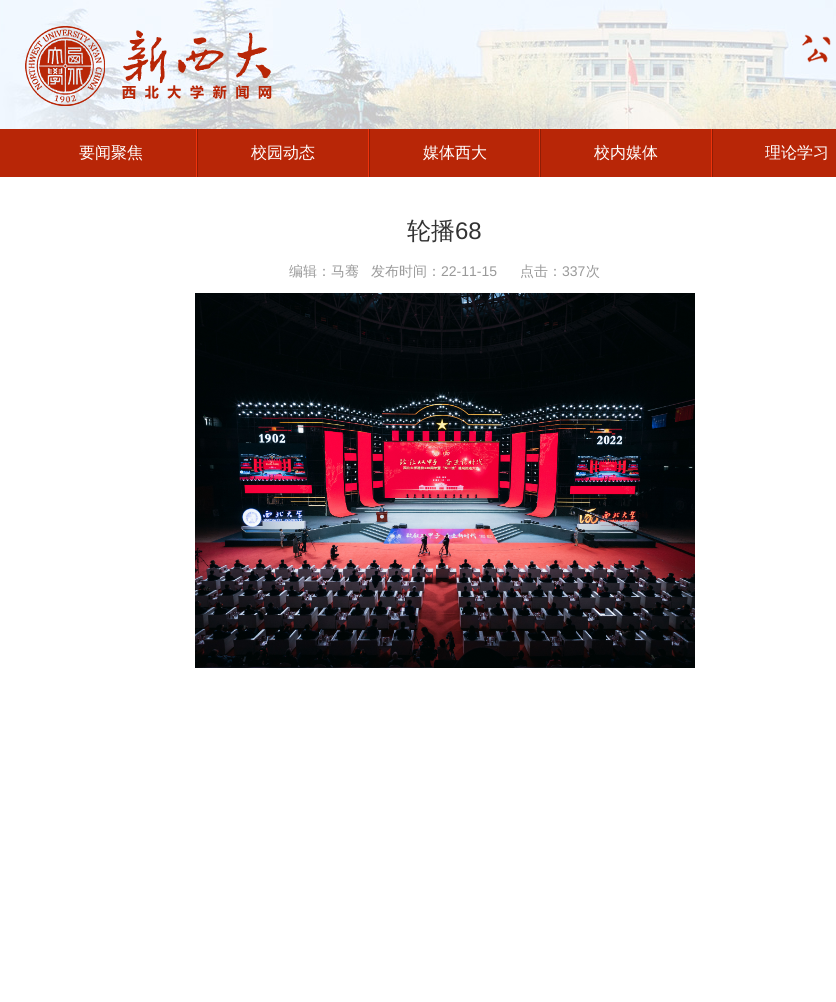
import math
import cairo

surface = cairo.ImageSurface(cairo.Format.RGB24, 836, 1002)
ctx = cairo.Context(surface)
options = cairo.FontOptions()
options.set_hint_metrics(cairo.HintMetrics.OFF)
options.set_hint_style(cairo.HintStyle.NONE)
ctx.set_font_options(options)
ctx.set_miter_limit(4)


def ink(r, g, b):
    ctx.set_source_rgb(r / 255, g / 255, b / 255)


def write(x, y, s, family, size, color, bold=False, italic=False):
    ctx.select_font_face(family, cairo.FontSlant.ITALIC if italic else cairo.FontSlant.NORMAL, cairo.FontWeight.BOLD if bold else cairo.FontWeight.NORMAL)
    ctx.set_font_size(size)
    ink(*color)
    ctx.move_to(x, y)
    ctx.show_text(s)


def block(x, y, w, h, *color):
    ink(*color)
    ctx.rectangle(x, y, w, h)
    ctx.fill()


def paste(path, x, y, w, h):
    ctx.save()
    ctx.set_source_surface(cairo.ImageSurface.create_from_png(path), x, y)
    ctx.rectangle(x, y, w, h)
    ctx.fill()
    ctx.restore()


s1 = dict(family="WenQuanYi Zen Hei Medium", size=16, color=(255, 255, 255))
s2 = dict(family="WenQuanYi Zen Hei Medium", size=24, color=(51, 51, 51))
s3 = dict(family="Liberation Sans", size=24, color=(51, 51, 51))
s4 = dict(family="WenQuanYi Zen Hei Medium", size=14, color=(153, 153, 153))
s5 = dict(family="Liberation Sans", size=14, color=(153, 153, 153))

ink(255, 255, 255)
ctx.paint()
paste("pic1.png", 0, 0, 836, 129)
paste("pic2.png", 25, 26, 247, 80)
paste("pic3.png", 802, 34, 29, 29)
block(0, 129, 836, 48, 184, 38, 7)
write(79, 158, "要闻聚焦", **s1)
paste("pic4.png", 196, 129, 2, 48)
write(251, 158, "校园动态", **s1)
paste("pic4.png", 368, 129, 2, 48)
write(423, 158, "媒体西大", **s1)
paste("pic4.png", 539, 129, 2, 48)
write(594, 158, "校内媒体", **s1)
paste("pic4.png", 711, 129, 2, 48)
write(765, 158, "理论学习", **s1)
write(407, 239, "轮播", **s2)
write(455, 239, "68", **s3)
write(289, 276, "编辑：马骞", **s4)
write(371, 276, "发布时间：", **s4)
write(441, 276, "22-11-15", **s5)
write(520, 276, "点击：", **s4)
write(562, 276, "337", **s5)
write(586, 276, "次", **s4)
paste("pic5.png", 195, 293, 500, 375)
surface.write_to_png("screenshot.png")
